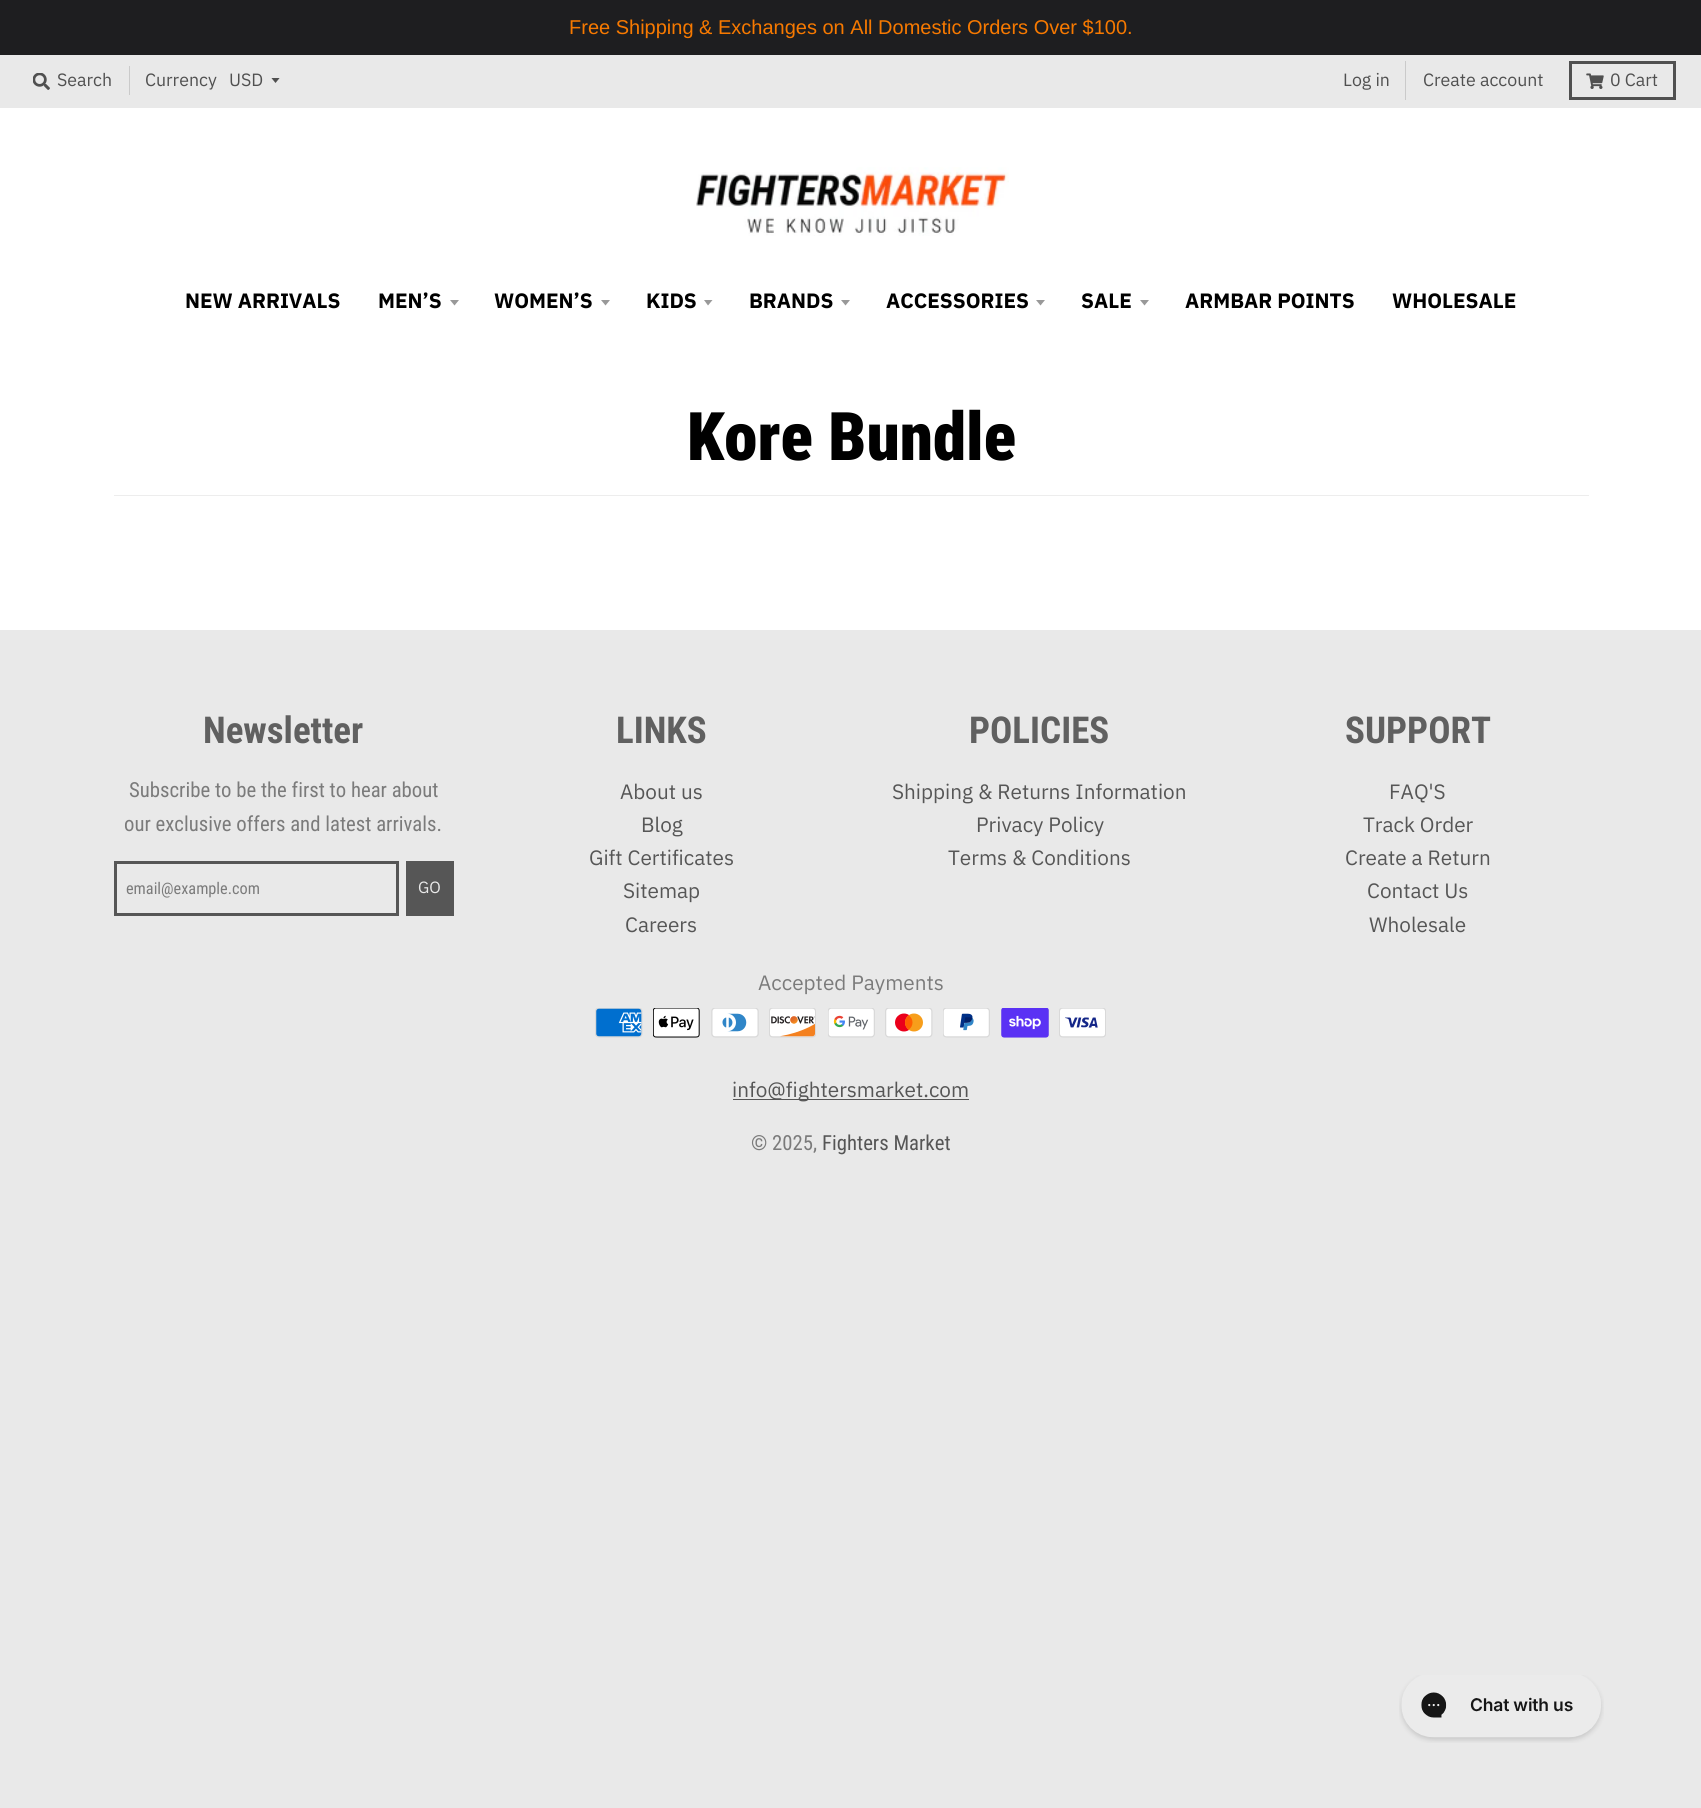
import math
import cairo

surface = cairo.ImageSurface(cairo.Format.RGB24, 1701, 1808)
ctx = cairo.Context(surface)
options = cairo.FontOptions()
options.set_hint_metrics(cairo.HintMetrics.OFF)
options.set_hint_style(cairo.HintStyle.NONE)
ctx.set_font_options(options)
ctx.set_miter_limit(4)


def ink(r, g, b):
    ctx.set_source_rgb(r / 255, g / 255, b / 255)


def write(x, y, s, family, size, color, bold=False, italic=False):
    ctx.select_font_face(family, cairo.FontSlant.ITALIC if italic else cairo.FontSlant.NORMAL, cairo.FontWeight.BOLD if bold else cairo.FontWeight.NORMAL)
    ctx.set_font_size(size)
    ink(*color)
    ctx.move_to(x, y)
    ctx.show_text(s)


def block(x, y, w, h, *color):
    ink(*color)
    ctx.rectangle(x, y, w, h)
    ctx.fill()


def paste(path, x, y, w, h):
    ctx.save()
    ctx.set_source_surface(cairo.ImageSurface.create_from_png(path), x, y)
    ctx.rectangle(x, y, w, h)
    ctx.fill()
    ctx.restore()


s1 = dict(family="Liberation Sans", size=20, color=(247, 121, 0))
s2 = dict(family="IBM Plex Sans", size=17.75, color=(80, 80, 80))
s3 = dict(family="IBM Plex Sans", size=20.75, color=(0, 0, 0), bold=True)
s4 = dict(family="Roboto Condensed Black", size=67, color=(0, 0, 0))
s5 = dict(family="Roboto Condensed", size=37, color=(96, 96, 96), bold=True)
s6 = dict(family="Roboto Condensed", size=20.75, color=(123, 123, 123))
s7 = dict(family="Roboto Condensed", size=16.25, color=(123, 123, 123))
s8 = dict(family="IBM Plex Sans", size=16.25, color=(233, 233, 233))
s9 = dict(family="IBM Plex Sans", size=20.75, color=(86, 86, 86))
s10 = dict(family="IBM Plex Sans", size=20.75, color=(123, 123, 123))
s11 = dict(family="Roboto Condensed", size=20.75, color=(86, 86, 86))

ink(233, 233, 233)
ctx.paint()
block(0, 108, 1701, 522, 255, 255, 255)
block(0, 0, 1701, 55, 30, 30, 32)
write(569, 34, "Free Shipping & Exchanges on All Domestic Orders Over $100.", **s1)
paste("pic1.png", 33, 73, 17, 17)
write(57, 86, "Search", **s2)
block(129, 66, 1, 29, 202, 202, 202)
write(145, 86, "Currency", **s2)
ctx.save()
ctx.rectangle(271, 78, 10, 6)
ctx.clip()
ctx.new_path()
ctx.move_to(271, 77.5)
ctx.line_to(275.5, 83)
ctx.line_to(280, 77.5)
ctx.close_path()
ctx.fill()
ctx.restore()
write(229, 86, "USD", **s2)
block(1405, 61, 1, 39, 202, 202, 202)
write(1343, 86, "Log in", **s2)
write(1423, 86, "Create account", **s2)
ctx.rectangle(1570.5, 62.5, 104, 36)
ctx.set_line_width(3)
ctx.stroke()
paste("pic2.png", 1586, 73, 18, 16)
write(1610, 86, "0 Cart", **s2)
paste("pic3.png", 696, 167, 313, 69)
write(185, 308, "NEW ARRIVALS", **s3)
write(378, 308, "MEN’S", **s3)
ink(153, 153, 153)
ctx.new_path()
ctx.move_to(450, 300)
ctx.line_to(454.5, 305.5)
ctx.line_to(459, 300)
ctx.close_path()
ctx.fill()
write(494, 308, "WOMEN’S", **s3)
ink(153, 153, 153)
ctx.new_path()
ctx.move_to(601, 300)
ctx.line_to(605.5, 305.5)
ctx.line_to(610, 300)
ctx.close_path()
ctx.fill()
write(646, 308, "KIDS", **s3)
ink(153, 153, 153)
ctx.new_path()
ctx.move_to(704, 300)
ctx.line_to(708, 305.5)
ctx.line_to(712.5, 300)
ctx.close_path()
ctx.fill()
write(749, 308, "BRANDS", **s3)
ink(153, 153, 153)
ctx.new_path()
ctx.move_to(841, 300)
ctx.line_to(845.5, 305.5)
ctx.line_to(850, 300)
ctx.close_path()
ctx.fill()
write(886, 308, "ACCESSORIES", **s3)
ink(153, 153, 153)
ctx.new_path()
ctx.move_to(1036, 300)
ctx.line_to(1040.5, 305.5)
ctx.line_to(1045, 300)
ctx.close_path()
ctx.fill()
write(1081, 308, "SALE", **s3)
ink(153, 153, 153)
ctx.new_path()
ctx.move_to(1140, 300)
ctx.line_to(1144.5, 305.5)
ctx.line_to(1149, 300)
ctx.close_path()
ctx.fill()
write(1185, 308, "ARMBAR POINTS", **s3)
write(1392, 308, "WHOLESALE", **s3)
block(114, 495, 1475, 1, 237, 237, 237)
write(687, 460, "Kore Bundle", **s4)
write(203, 743, "Newsletter", **s5)
write(129, 797, "Subscribe to be the first to hear about", **s6)
write(124, 831, "our exclusive offers and latest arrivals.", **s6)
ctx.rectangle(115.5, 862.5, 282, 52)
ink(86, 86, 86)
ctx.stroke()
write(126, 894, "email@example.com", **s7)
block(406, 861, 48, 55, 86, 86, 86)
write(418, 893, "GO", **s8)
write(616, 743, "LINKS", **s5)
write(620, 799, "About us", **s9)
write(641, 832, "Blog", **s9)
write(589, 865, "Gift Certificates", **s9)
write(623, 898, "Sitemap", **s9)
write(625, 932, "Careers", **s9)
write(969, 743, "POLICIES", **s5)
write(892, 799, "Shipping & Returns Information", **s9)
write(976, 832, "Privacy Policy", **s9)
write(948, 865, "Terms & Conditions", **s9)
write(1345, 743, "SUPPORT", **s5)
write(1389, 799, "FAQ'S", **s9)
write(1363, 832, "Track Order", **s9)
write(1345, 865, "Create a Return", **s9)
write(1367, 898, "Contact Us", **s9)
write(1369, 932, "Wholesale", **s9)
write(758, 990, "Accepted Payments", **s10)
paste("pic4.png", 595, 1008, 48, 30)
paste("pic5.png", 653, 1008, 47, 30)
paste("pic6.png", 711, 1008, 48, 30)
paste("pic7.png", 769, 1008, 47, 30)
paste("pic8.png", 828, 1008, 47, 30)
paste("pic9.png", 885, 1008, 48, 30)
paste("pic10.png", 943, 1008, 47, 30)
paste("pic11.png", 1001, 1008, 48, 30)
paste("pic12.png", 1059, 1008, 47, 30)
block(733, 1099, 236, 1, 86, 86, 86)
write(732, 1097, "info@fightersmarket.com", **s9)
write(751, 1150, "© 2025,", **s6)
write(822, 1150, "Fighters Market", **s11)
paste("pic13.png", 1399, 1675, 205, 68)
surface.write_to_png("screenshot.png")
